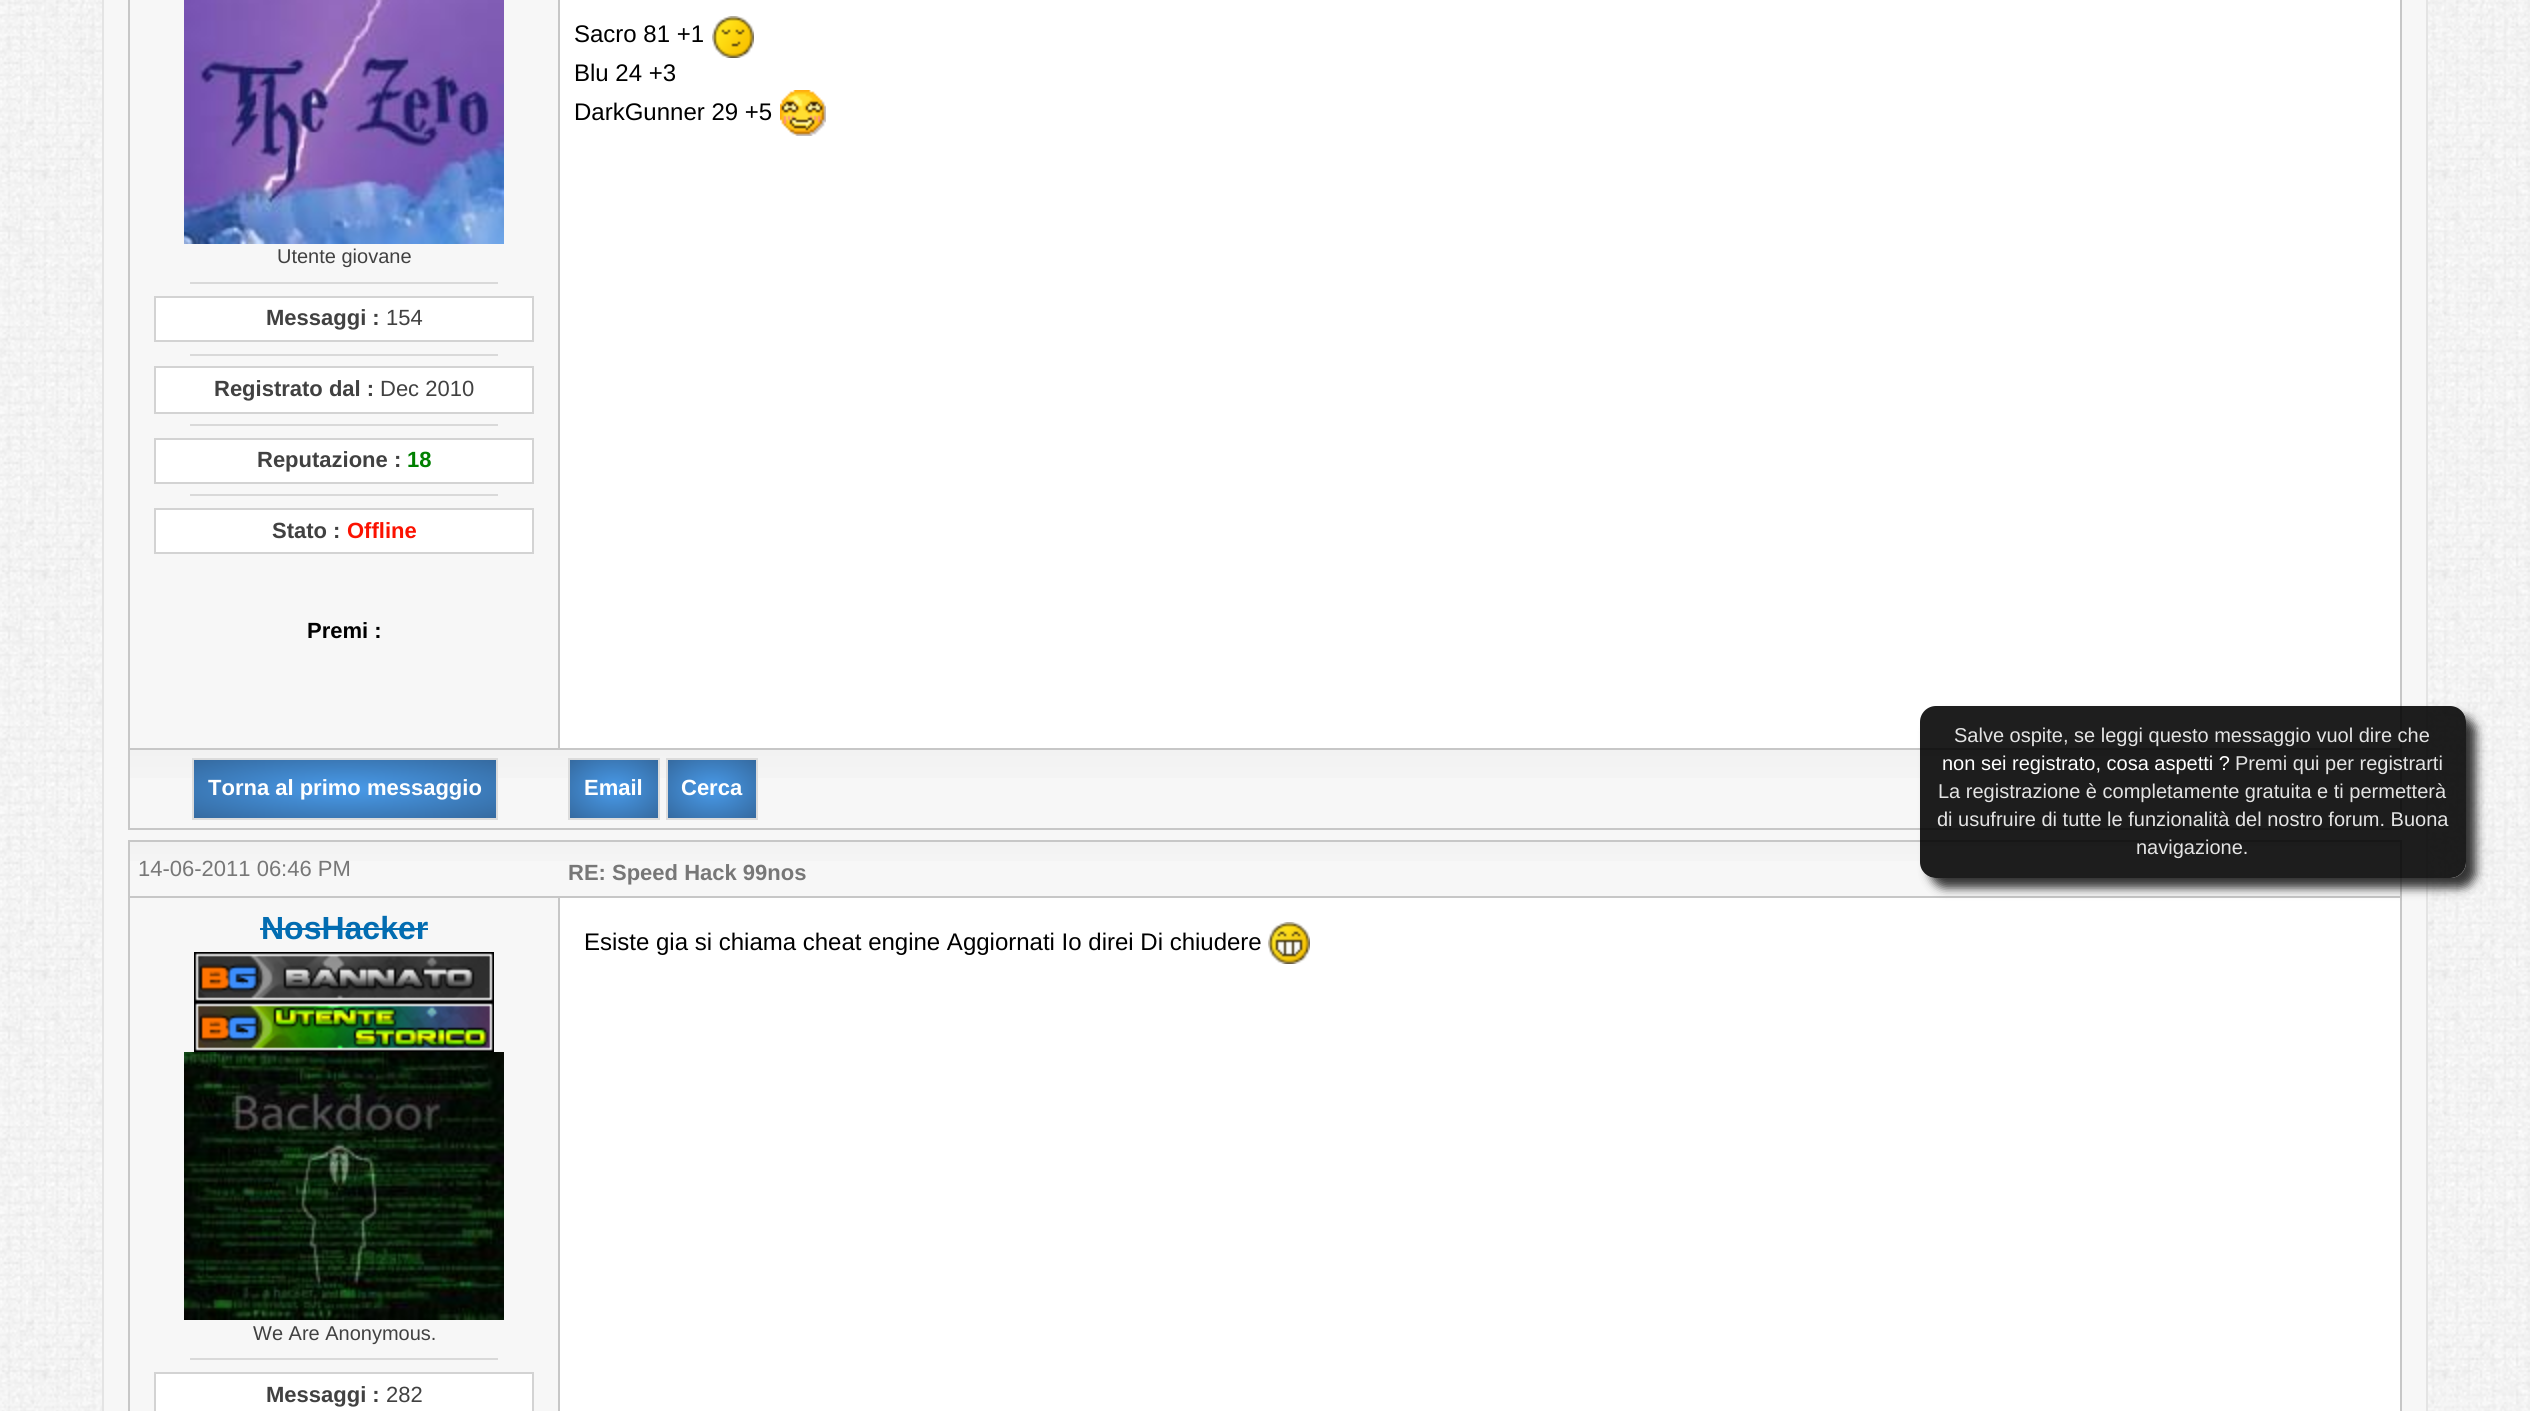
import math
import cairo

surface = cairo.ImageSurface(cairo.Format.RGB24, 2530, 1411)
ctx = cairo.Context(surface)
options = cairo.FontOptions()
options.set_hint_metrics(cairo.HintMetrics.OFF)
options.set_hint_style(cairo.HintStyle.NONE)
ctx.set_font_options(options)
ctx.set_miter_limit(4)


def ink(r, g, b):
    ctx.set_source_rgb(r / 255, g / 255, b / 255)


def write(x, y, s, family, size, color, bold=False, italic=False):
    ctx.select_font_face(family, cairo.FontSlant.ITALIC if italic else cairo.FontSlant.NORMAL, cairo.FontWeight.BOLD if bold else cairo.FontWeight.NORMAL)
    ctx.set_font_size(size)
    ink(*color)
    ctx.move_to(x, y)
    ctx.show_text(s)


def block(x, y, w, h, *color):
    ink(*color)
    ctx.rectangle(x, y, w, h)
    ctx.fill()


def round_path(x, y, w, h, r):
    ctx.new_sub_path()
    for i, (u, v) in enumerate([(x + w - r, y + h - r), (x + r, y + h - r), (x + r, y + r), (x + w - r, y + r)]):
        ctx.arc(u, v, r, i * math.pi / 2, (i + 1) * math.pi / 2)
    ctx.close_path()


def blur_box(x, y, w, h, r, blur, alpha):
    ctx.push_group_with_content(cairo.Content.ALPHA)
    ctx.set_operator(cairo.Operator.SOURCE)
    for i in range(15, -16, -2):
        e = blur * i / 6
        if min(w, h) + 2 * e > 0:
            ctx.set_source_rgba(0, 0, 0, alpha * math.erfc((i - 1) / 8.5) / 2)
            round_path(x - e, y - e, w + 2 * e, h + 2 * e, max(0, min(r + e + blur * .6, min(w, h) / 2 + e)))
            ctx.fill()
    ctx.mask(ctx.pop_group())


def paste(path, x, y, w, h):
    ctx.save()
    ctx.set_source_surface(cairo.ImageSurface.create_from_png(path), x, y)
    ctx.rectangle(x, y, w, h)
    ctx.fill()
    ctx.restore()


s1 = dict(family="Liberation Sans", size=24, color=(0, 0, 0))
s2 = dict(family="Liberation Sans", size=20, color=(65, 65, 65))
s3 = dict(family="Liberation Sans", size=22, color=(65, 65, 65), bold=True)
s4 = dict(family="Liberation Sans", size=22, color=(65, 65, 65))
s5 = dict(family="Liberation Sans", size=22, color=(0, 128, 0), bold=True)
s6 = dict(family="Liberation Sans", size=22, color=(251, 18, 1), bold=True)
s7 = dict(family="Liberation Sans", size=22, color=(0, 0, 0), bold=True)
s8 = dict(family="Liberation Sans", size=22, color=(255, 255, 255), bold=True)
s9 = dict(family="Liberation Sans", size=22, color=(119, 119, 119))
s10 = dict(family="Liberation Sans", size=22, color=(119, 119, 119), bold=True)
s11 = dict(family="Liberation Sans", size=32, color=(2, 108, 177), bold=True)
s12 = dict(family="Liberation Sans", size=20, color=(228, 228, 228))
s13 = dict(family="Liberation Sans", size=20, color=(255, 255, 255))

ink(255, 255, 255)
ctx.paint()
paste("pic1.png", 0, 0, 2530, 1411)
ink(247, 247, 247)
ctx.rectangle(103, -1, 2324, 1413)
ctx.fill_preserve()
ink(228, 228, 228)
ctx.stroke()
block(560, 0, 1840, 748, 255, 255, 255)
block(2400, 0, 2, 830, 199, 199, 199)
block(560, 748, 1842, 2, 199, 199, 199)
write(574, 42, "Sacro 81 +1", **s1)
paste("pic2.png", 712, 16, 42, 42)
write(574, 81, "Blu 24 +3", **s1)
write(574, 120, "DarkGunner 29 +5", **s1)
paste("pic3.png", 780, 90, 46, 46)
block(558, 0, 2, 750, 199, 199, 199)
block(128, 748, 432, 2, 199, 199, 199)
block(128, 0, 2, 750, 199, 199, 199)
paste("pic4.png", 184, 0, 320, 244)
write(277, 263, "Utente giovane", **s2)
block(190, 282, 308, 2, 217, 217, 217)
ink(255, 255, 255)
ctx.rectangle(155, 297, 378, 44)
ctx.fill_preserve()
ink(211, 211, 211)
ctx.stroke()
write(266, 325, "Messaggi :", **s3)
write(386, 325, "154", **s4)
block(190, 354, 308, 2, 217, 217, 217)
ink(255, 255, 255)
ctx.rectangle(155, 367, 378, 46)
ctx.fill_preserve()
ink(211, 211, 211)
ctx.stroke()
write(214, 396, "Registrato dal :", **s3)
write(380, 396, "Dec 2010", **s4)
block(190, 424, 308, 2, 217, 217, 217)
ink(255, 255, 255)
ctx.rectangle(155, 439, 378, 44)
ctx.fill_preserve()
ink(211, 211, 211)
ctx.stroke()
write(257, 467, "Reputazione :", **s3)
write(407, 467, "18", **s5)
block(190, 494, 308, 2, 217, 217, 217)
ink(255, 255, 255)
ctx.rectangle(155, 509, 378, 44)
ctx.fill_preserve()
ink(211, 211, 211)
ctx.stroke()
write(272, 538, "Stato :", **s3)
write(347, 538, "Offline", **s6)
write(307, 638, "Premi :", **s7)
gradient = cairo.LinearGradient(345, 750, 345, 828)
gradient.add_color_stop_rgba(0, 0.949, 0.949, 0.949, 1)
gradient.add_color_stop_rgba(1, 0.976, 0.976, 0.976, 1)
ctx.set_source(gradient)
ctx.rectangle(130, 750, 430, 28)
ctx.fill()
block(128, 828, 2274, 2, 199, 199, 199)
block(128, 750, 2, 80, 199, 199, 199)
gradient = cairo.RadialGradient(0, 0, 0, 0, 0, 1)
gradient.set_matrix(cairo.Matrix(1 / 214, 0, 0, 1 / 41, -1 * 345 / 214, -1 * 789 / 41))
gradient.add_color_stop_rgba(0, 0.286, 0.608, 0.918, 1)
gradient.add_color_stop_rgba(1, 0.208, 0.416, 0.627, 1)
ctx.set_source(gradient)
ctx.rectangle(194, 760, 302, 58)
ctx.fill()
ctx.rectangle(193, 759, 304, 60)
ink(220, 220, 220)
ctx.stroke()
write(208, 795, "Torna al primo messaggio", **s8)
gradient = cairo.LinearGradient(1480, 750, 1480, 828)
gradient.add_color_stop_rgba(0, 0.949, 0.949, 0.949, 1)
gradient.add_color_stop_rgba(1, 0.976, 0.976, 0.976, 1)
ctx.set_source(gradient)
ctx.rectangle(560, 750, 1840, 28)
ctx.fill()
gradient = cairo.RadialGradient(0, 0, 0, 0, 0, 1)
gradient.set_matrix(cairo.Matrix(1 / 62, 0, 0, 1 / 41, -1 * 614 / 62, -1 * 789 / 41))
gradient.add_color_stop_rgba(0, 0.286, 0.608, 0.918, 1)
gradient.add_color_stop_rgba(1, 0.208, 0.416, 0.627, 1)
ctx.set_source(gradient)
ctx.rectangle(570, 760, 88, 58)
ctx.fill()
ctx.rectangle(569, 759, 90, 60)
ink(220, 220, 220)
ctx.stroke()
write(584, 795, "Email", **s8)
gradient = cairo.RadialGradient(0, 0, 0, 0, 0, 1)
gradient.set_matrix(cairo.Matrix(1 / 62, 0, 0, 1 / 41, -1 * 712 / 62, -1 * 789 / 41))
gradient.add_color_stop_rgba(0, 0.286, 0.608, 0.918, 1)
gradient.add_color_stop_rgba(1, 0.208, 0.416, 0.627, 1)
ctx.set_source(gradient)
ctx.rectangle(668, 760, 88, 58)
ctx.fill()
ctx.rectangle(667, 759, 90, 60)
ink(220, 220, 220)
ctx.stroke()
write(681, 795, "Cerca", **s8)
gradient = cairo.LinearGradient(345, 842, 345, 896)
gradient.add_color_stop_rgba(0, 0.949, 0.949, 0.949, 1)
gradient.add_color_stop_rgba(1, 0.976, 0.976, 0.976, 1)
ctx.set_source(gradient)
ctx.rectangle(130, 842, 430, 19)
ctx.fill()
block(128, 840, 2274, 2, 199, 199, 199)
block(128, 896, 432, 2, 199, 199, 199)
block(128, 840, 2, 571, 199, 199, 199)
write(138, 876, "14-06-2011 06:46 PM", **s9)
gradient = cairo.LinearGradient(1480, 842, 1480, 896)
gradient.add_color_stop_rgba(0, 0.949, 0.949, 0.949, 1)
gradient.add_color_stop_rgba(1, 0.976, 0.976, 0.976, 1)
ctx.set_source(gradient)
ctx.rectangle(560, 842, 1840, 19)
ctx.fill()
block(2400, 840, 2, 571, 199, 199, 199)
block(560, 896, 1842, 2, 199, 199, 199)
write(568, 880, "RE: Speed Hack 99nos", **s10)
block(558, 898, 2, 513, 199, 199, 199)
write(261, 939, "NosHacker", **s11)
block(260, 928, 168, 2, 2, 108, 177)
paste("pic5.png", 194, 952, 300, 50)
paste("pic6.png", 194, 1002, 300, 50)
paste("pic7.png", 184, 1052, 320, 268)
write(253, 1340, "We Are Anonymous.", **s2)
block(190, 1358, 308, 2, 217, 217, 217)
ink(255, 255, 255)
ctx.rectangle(155, 1373, 378, 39)
ctx.fill_preserve()
ink(211, 211, 211)
ctx.stroke()
write(266, 1402, "Messaggi :", **s3)
write(386, 1402, "282", **s4)
block(560, 898, 1840, 513, 255, 255, 255)
write(584, 950, "Esiste gia si chiama cheat engine Aggiornati Io direi Di chiudere", **s1)
paste("pic8.png", 1268, 922, 42, 42)
ctx.save()
ctx.set_fill_rule(cairo.FillRule.EVEN_ODD)
ctx.new_path()
ctx.move_to(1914, 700)
ctx.line_to(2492, 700)
ctx.line_to(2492, 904)
ctx.line_to(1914, 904)
ctx.close_path()
ctx.move_to(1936, 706)
ctx.line_to(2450, 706)
ctx.curve_to(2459, 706, 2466, 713, 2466, 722)
ctx.line_to(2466, 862)
ctx.curve_to(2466, 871, 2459, 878, 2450, 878)
ctx.line_to(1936, 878)
ctx.curve_to(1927, 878, 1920, 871, 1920, 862)
ctx.line_to(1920, 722)
ctx.curve_to(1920, 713, 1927, 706, 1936, 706)
ctx.close_path()
ctx.clip()
ink(25, 25, 25)
blur_box(1930, 716, 546, 172, 16, 5, 0.88)
ctx.restore()
ctx.set_source_rgba(0, 0, 0, 0.88)
round_path(1920, 706, 546, 172, 16)
ctx.fill()
write(1954, 742, "Salve ospite, se leggi questo messaggio vuol dire che", **s12)
write(1942, 770, "non sei registrato, cosa aspetti ?", **s13)
write(2235, 770, "Premi qui per registrarti", **s12)
write(1938, 798, "La registrazione è completamente gratuita e ti permetterà", **s12)
write(1937, 826, "di usufruire di tutte le funzionalità del nostro forum. Buona", **s12)
write(2136, 854, "navigazione.", **s12)
surface.write_to_png("screenshot.png")
